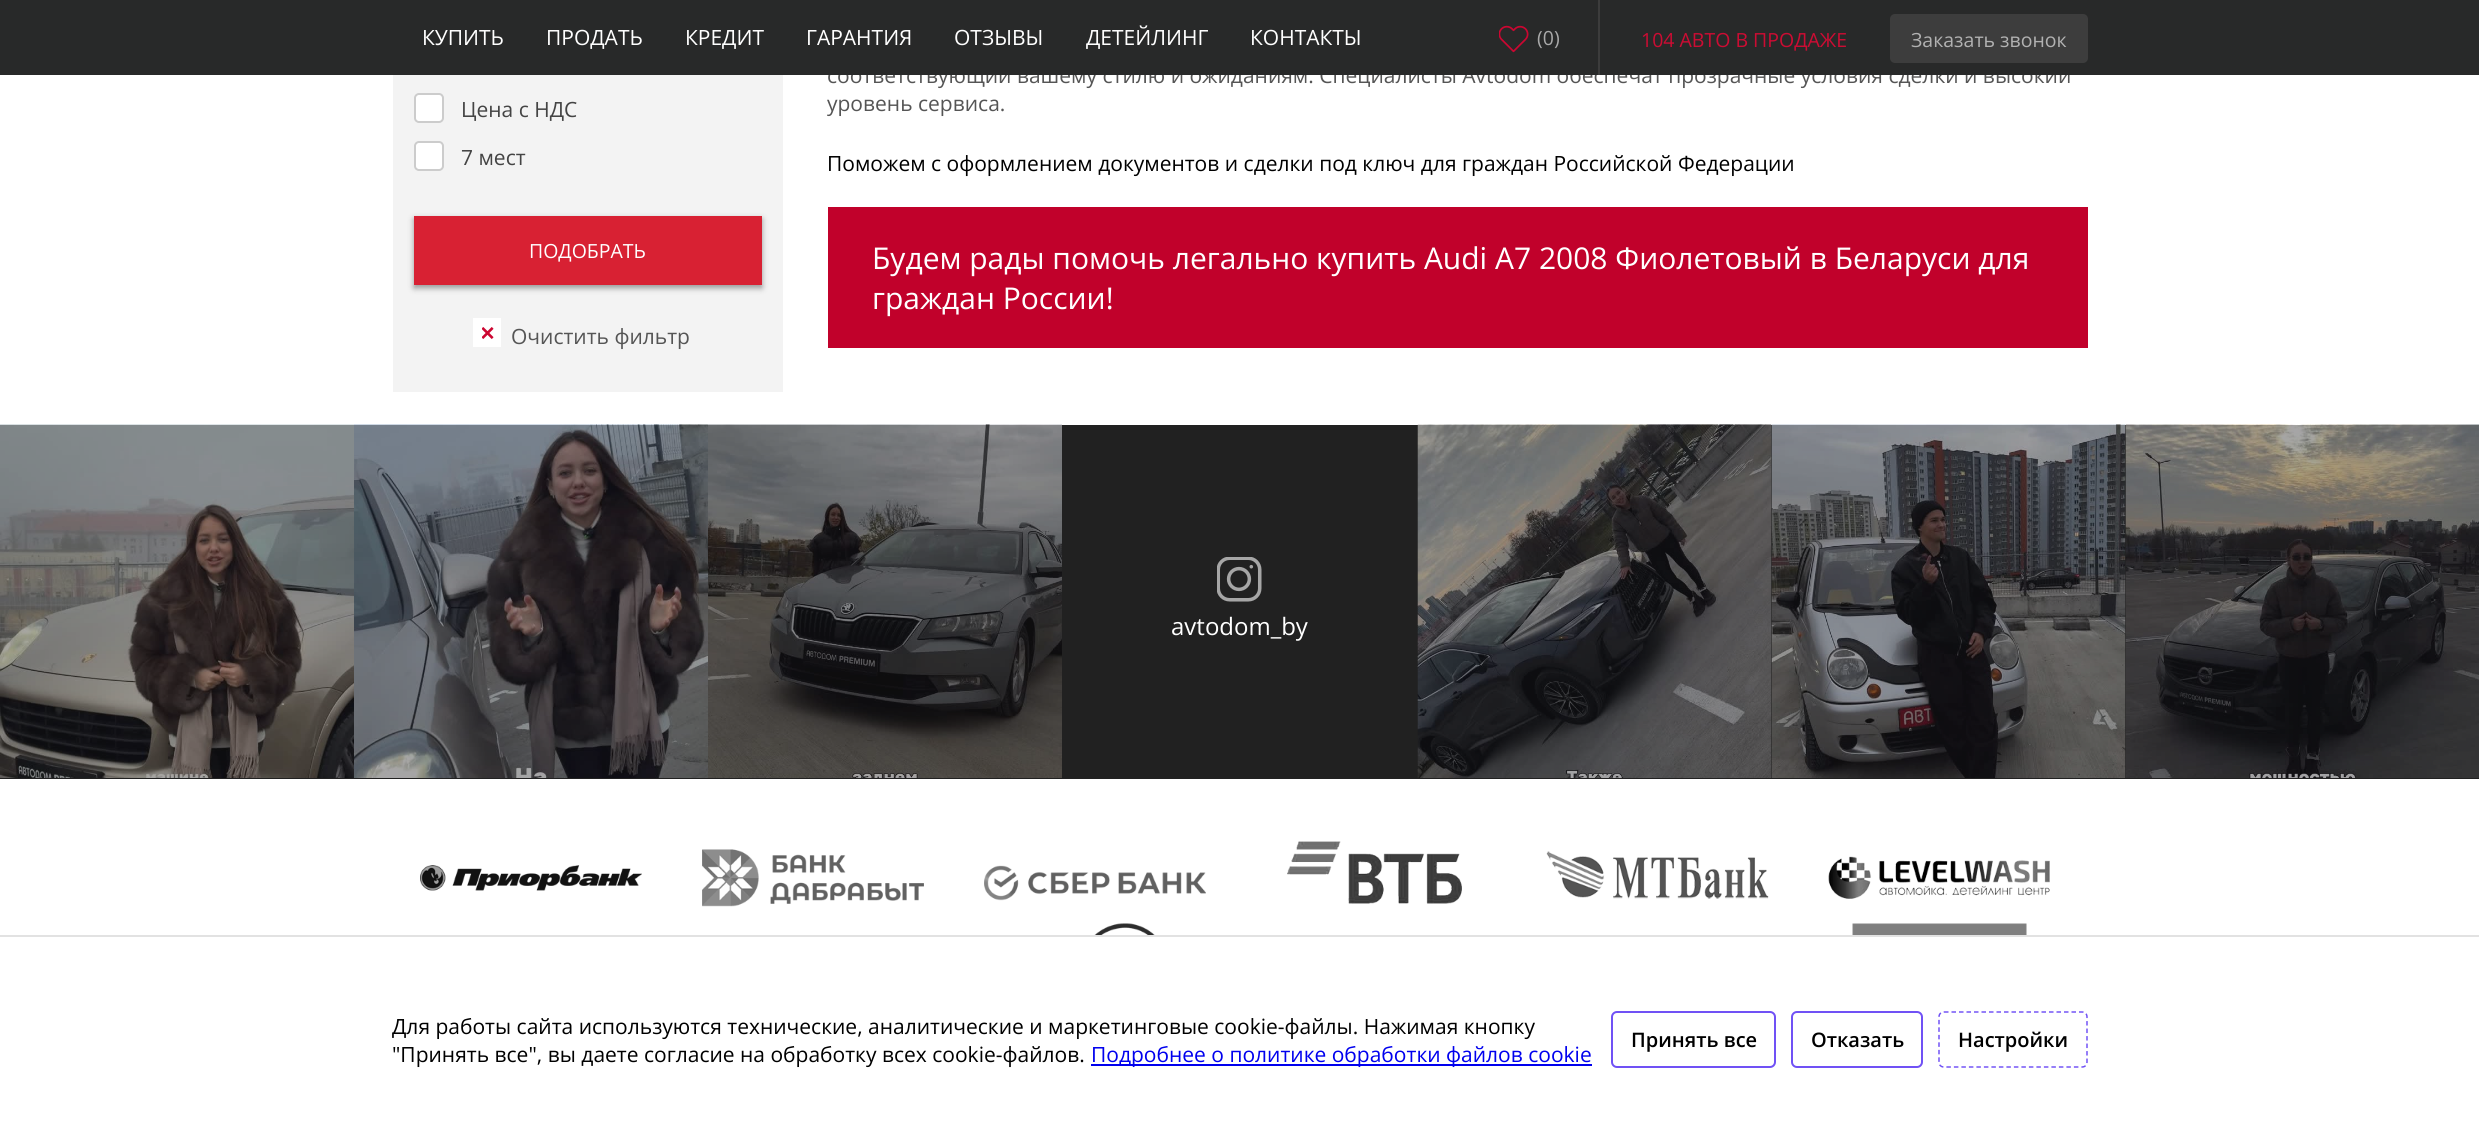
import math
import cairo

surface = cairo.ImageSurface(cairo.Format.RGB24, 2479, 1142)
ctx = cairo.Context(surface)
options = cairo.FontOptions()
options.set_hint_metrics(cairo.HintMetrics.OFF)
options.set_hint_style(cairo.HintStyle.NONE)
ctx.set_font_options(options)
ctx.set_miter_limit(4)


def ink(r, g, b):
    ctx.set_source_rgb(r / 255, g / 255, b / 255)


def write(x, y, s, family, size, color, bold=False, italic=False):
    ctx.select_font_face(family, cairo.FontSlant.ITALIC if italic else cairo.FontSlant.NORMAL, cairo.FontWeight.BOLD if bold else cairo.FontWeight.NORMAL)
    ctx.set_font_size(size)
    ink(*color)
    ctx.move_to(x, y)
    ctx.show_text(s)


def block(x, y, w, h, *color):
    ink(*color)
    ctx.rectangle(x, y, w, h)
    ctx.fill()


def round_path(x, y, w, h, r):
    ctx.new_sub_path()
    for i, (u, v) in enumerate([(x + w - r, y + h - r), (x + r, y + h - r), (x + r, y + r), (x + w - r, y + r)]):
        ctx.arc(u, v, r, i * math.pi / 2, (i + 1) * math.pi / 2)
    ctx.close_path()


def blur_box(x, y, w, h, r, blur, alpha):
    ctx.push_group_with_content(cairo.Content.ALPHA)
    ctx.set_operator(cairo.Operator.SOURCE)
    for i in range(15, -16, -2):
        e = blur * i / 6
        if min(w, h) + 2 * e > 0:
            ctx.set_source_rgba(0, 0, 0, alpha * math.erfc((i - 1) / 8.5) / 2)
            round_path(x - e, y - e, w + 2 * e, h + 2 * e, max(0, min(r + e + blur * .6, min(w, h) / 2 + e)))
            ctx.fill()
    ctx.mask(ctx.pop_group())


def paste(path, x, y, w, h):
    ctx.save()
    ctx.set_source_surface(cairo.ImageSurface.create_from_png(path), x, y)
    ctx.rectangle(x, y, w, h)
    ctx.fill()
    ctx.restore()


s1 = dict(family="Open Sans", size=21, color=(85, 85, 85))
s2 = dict(family="Open Sans", size=21, color=(255, 255, 255))
s3 = dict(family="Open Sans", size=19.5, color=(169, 169, 169))
s4 = dict(family="Open Sans", size=19.5, color=(204, 12, 51))
s5 = dict(family="Open Sans", size=19.5, color=(178, 178, 178))
s6 = dict(family="Open Sans", size=21, color=(68, 68, 68))
s7 = dict(family="Open Sans", size=19.5, color=(255, 255, 255))
s8 = dict(family="Open Sans", size=21, color=(0, 0, 0))
s9 = dict(family="Open Sans", size=30, color=(255, 255, 255))
s10 = dict(family="Open Sans", size=24, color=(255, 255, 255))
s11 = dict(family="Open Sans", size=21, color=(0, 0, 238))
s12 = dict(family="Open Sans SemiBold", size=20, color=(0, 0, 0))

ink(255, 255, 255)
ctx.paint()
write(827, 83, "соответствующий вашему стилю и ожиданиям. Специалисты Avtodom обеспечат прозрачные условия сделки и высокий", **s1)
block(0, 0, 2479, 75, 40, 41, 41)
write(422, 45, "КУПИТЬ", **s2)
write(546, 45, "ПРОДАТЬ", **s2)
write(685, 45, "КРЕДИТ", **s2)
write(806, 45, "ГАРАНТИЯ", **s2)
write(954, 45, "ОТЗЫВЫ", **s2)
write(1086, 45, "ДЕТЕЙЛИНГ", **s2)
write(1250, 45, "КОНТАКТЫ", **s2)
paste("pic1.png", 1499, 25, 30, 28)
block(1598, 0, 2, 75, 60, 60, 60)
write(1537, 45, "(0)", **s3)
write(1641, 47, "104 АВТО В ПРОДАЖЕ", **s4)
ink(61, 61, 61)
round_path(1890, 14, 198, 49, 5)
ctx.fill()
write(1911, 47, "Заказать звонок", **s5)
block(393, 75, 390, 317, 243, 243, 243)
ink(255, 255, 255)
round_path(415, 94, 28, 28, 4)
ctx.fill_preserve()
ink(204, 204, 204)
ctx.stroke()
write(461, 117, "Цена с НДС", **s6)
ink(255, 255, 255)
round_path(415, 142, 28, 28, 4)
ctx.fill_preserve()
ink(204, 204, 204)
ctx.stroke()
write(461, 165, "7 мест", **s6)
ink(150, 150, 150)
blur_box(414, 219, 348, 69, 0, 3, 1)
block(414, 216, 348, 69, 216, 33, 51)
write(529, 258, "ПОДОБРАТЬ", **s7)
block(473, 318, 28, 29, 255, 255, 255)
paste("pic2.png", 482, 327, 12, 12)
write(511, 344, "Очистить фильтр", **s1)
write(827, 111, "уровень сервиса.", **s1)
write(827, 171, "Поможем с оформлением документов и сделки под ключ для граждан Российской Федерации", **s8)
block(828, 207, 1260, 141, 193, 1, 43)
write(872, 269, "Будем рады помочь легально купить Audi A7 2008 Фиолетовый в Беларуси для", **s9)
write(872, 309, "граждан России!", **s9)
block(0, 425, 2479, 354, 33, 33, 33)
paste("pic3.png", 0, 424, 354, 354)
paste("pic4.png", 354, 424, 354, 354)
paste("pic5.png", 708, 424, 354, 354)
paste("pic6.png", 1217, 557, 45, 45)
write(1171, 635, "avtodom_by", **s10)
paste("pic7.png", 1417, 424, 355, 354)
paste("pic8.png", 1771, 424, 355, 354)
paste("pic9.png", 2125, 424, 354, 354)
paste("pic10.png", 420, 865, 222, 26)
paste("pic11.png", 702, 849, 222, 58)
paste("pic12.png", 984, 865, 222, 36)
paste("pic13.png", 1287, 841, 175, 63)
paste("pic14.png", 1546, 851, 223, 48)
paste("pic15.png", 1828, 856, 222, 43)
paste("pic16.png", 1094, 923, 61, 12)
paste("pic17.png", 1852, 923, 175, 12)
block(0, 935, 2479, 2, 226, 226, 226)
write(392, 1034, "Для работы сайта используются технические, аналитические и маркетинговые сооkіе-файлы. Нажимая кнопку", **s8)
write(392, 1062, "\"Принять все\", вы даете согласие на обработку всех cookie-файлов.", **s8)
block(1091, 1064, 501, 2, 0, 0, 238)
write(1091, 1062, "Подробнее о политике обработки файлов cookie", **s11)
round_path(1612, 1012, 163, 55, 5)
ink(112, 81, 245)
ctx.stroke()
write(1631, 1047, "Принять все", **s12)
round_path(1792, 1012, 130, 55, 5)
ink(112, 81, 245)
ctx.stroke()
write(1811, 1047, "Отказать", **s12)
ctx.new_path()
ctx.move_to(1944, 1012)
ctx.line_to(2082, 1012)
ctx.curve_to(2085, 1012, 2087, 1014, 2087, 1017)
ctx.line_to(2087, 1062)
ctx.curve_to(2087, 1065, 2085, 1067, 2082, 1067)
ctx.line_to(1944, 1067)
ctx.curve_to(1941, 1067, 1939, 1065, 1939, 1062)
ctx.line_to(1939, 1017)
ctx.curve_to(1939, 1014, 1941, 1012, 1944, 1012)
ctx.close_path()
ink(112, 81, 245)
ctx.set_line_width(1.5)
ctx.set_dash([4.5, 3])
ctx.stroke()
write(1958, 1047, "Настройки", **s12)
surface.write_to_png("screenshot.png")
